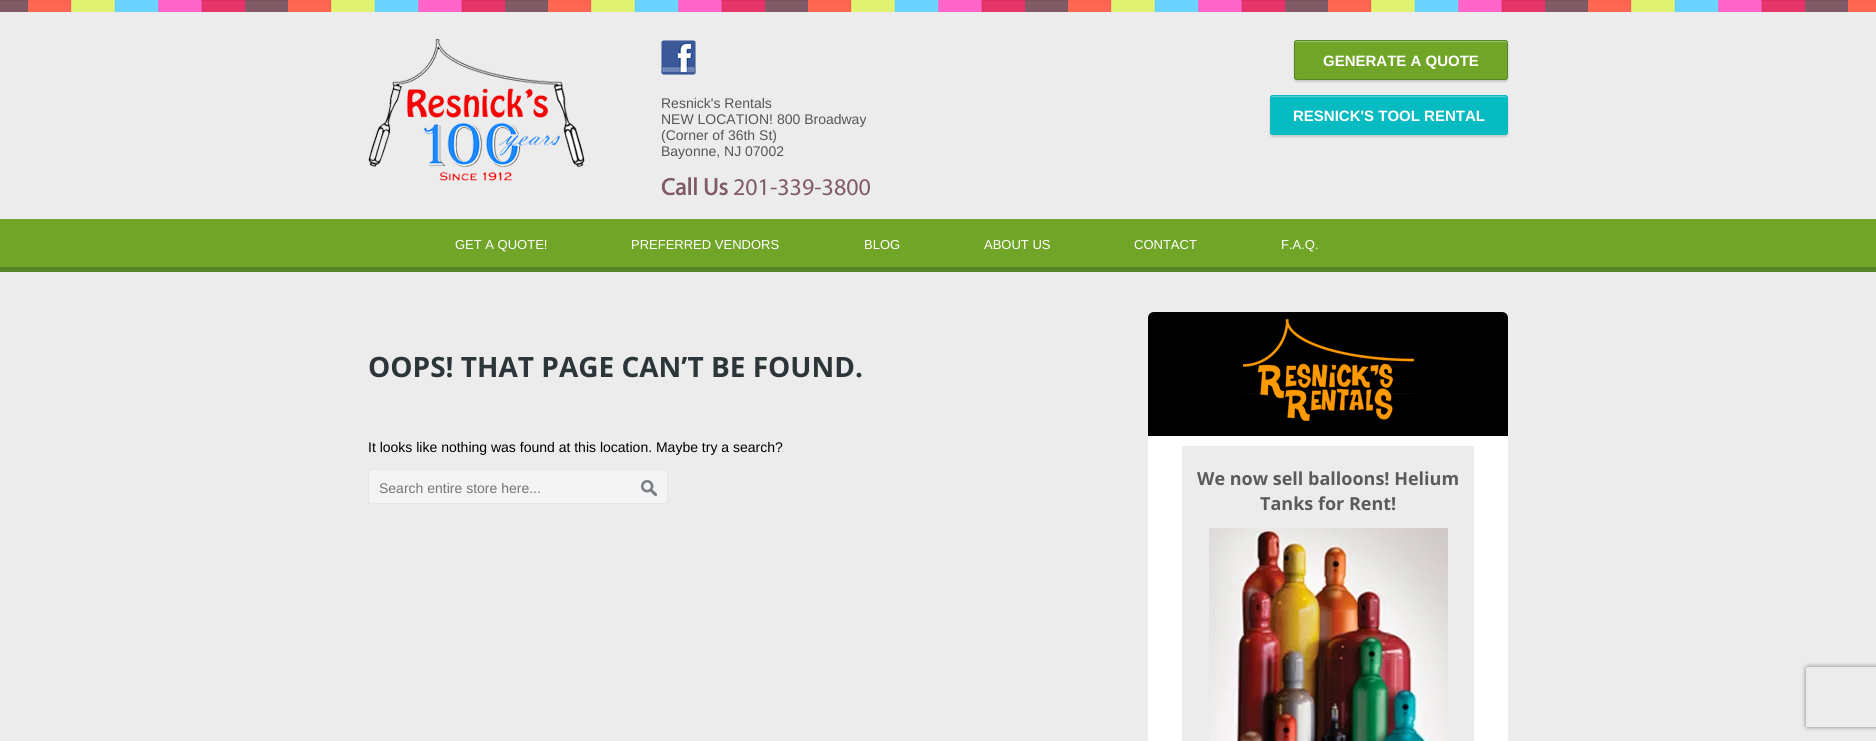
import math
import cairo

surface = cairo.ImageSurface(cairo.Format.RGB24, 1876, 741)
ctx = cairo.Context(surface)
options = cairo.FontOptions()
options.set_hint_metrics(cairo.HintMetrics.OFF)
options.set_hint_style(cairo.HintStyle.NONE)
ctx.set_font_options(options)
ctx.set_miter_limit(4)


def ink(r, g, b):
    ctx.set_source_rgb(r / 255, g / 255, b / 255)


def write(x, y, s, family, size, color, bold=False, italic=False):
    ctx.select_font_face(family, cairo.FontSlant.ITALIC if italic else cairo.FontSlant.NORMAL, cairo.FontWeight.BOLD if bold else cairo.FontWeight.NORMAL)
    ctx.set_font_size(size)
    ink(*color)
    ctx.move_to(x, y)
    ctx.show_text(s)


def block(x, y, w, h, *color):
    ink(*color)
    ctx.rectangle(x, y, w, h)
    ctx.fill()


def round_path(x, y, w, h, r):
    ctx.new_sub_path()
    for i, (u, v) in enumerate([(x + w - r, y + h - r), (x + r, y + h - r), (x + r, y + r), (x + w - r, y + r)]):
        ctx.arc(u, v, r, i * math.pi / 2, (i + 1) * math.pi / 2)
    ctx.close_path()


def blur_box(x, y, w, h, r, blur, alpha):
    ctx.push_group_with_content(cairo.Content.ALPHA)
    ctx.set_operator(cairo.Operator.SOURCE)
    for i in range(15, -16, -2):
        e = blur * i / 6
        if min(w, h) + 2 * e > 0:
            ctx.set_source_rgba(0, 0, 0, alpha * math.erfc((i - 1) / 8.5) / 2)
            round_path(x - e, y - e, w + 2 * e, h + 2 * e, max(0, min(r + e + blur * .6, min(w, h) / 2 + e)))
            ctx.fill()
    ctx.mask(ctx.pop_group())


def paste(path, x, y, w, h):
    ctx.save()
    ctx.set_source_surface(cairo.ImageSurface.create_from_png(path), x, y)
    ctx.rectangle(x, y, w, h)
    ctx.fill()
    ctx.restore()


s1 = dict(family="Liberation Sans", size=15, color=(255, 255, 255), bold=True)
s2 = dict(family="Liberation Sans", size=14, color=(89, 84, 84))
s3 = dict(family="Myriad", size=24, color=(128, 90, 101), bold=True)
s4 = dict(family="Myriad", size=24, color=(128, 90, 101))
s5 = dict(family="Liberation Sans", size=13, color=(255, 255, 255))
s6 = dict(family="Open Sans", size=28, color=(44, 54, 56), bold=True)
s7 = dict(family="Liberation Sans", size=14, color=(0, 0, 0))
s8 = dict(family="Liberation Sans", size=14, color=(117, 117, 117))
s9 = dict(family="Open Sans", size=18, color=(91, 91, 91), bold=True)

ink(236, 236, 236)
ctx.paint()
paste("pic1.png", 0, 0, 1876, 12)
paste("pic2.png", 368, 38, 217, 143)
ink(201, 201, 201)
blur_box(1294, 42, 214, 40, 3, 1, 1)
ink(112, 165, 40)
round_path(1294, 40, 214, 40, 3)
ctx.fill()
ink(159, 195, 111)
ctx.new_path()
ctx.move_to(1297, 42)
ctx.line_to(1505, 42)
ctx.curve_to(1506, 42, 1507, 43, 1507, 44)
ctx.curve_to(1507, 43, 1507, 41, 1505, 41)
ctx.line_to(1297, 41)
ctx.curve_to(1295, 41, 1295, 43, 1295, 44)
ctx.curve_to(1295, 43, 1296, 42, 1297, 42)
ctx.close_path()
ctx.fill()
round_path(1294.5, 40.5, 213, 39, 2.5)
ink(85, 135, 42)
ctx.set_line_width(1)
ctx.stroke()
write(1323, 66, "GENERATE A QUOTE", **s1)
ink(201, 201, 201)
blur_box(1270, 97, 238, 40, 3, 1, 1)
ink(7, 187, 194)
round_path(1270, 95, 238, 40, 3)
ctx.fill()
ink(89, 209, 214)
ctx.new_path()
ctx.move_to(1273, 97)
ctx.line_to(1505, 97)
ctx.curve_to(1506, 97, 1507, 98, 1507, 99)
ctx.line_to(1507, 97)
ctx.line_to(1505, 96)
ctx.line_to(1273, 96)
ctx.curve_to(1271, 96, 1271, 98, 1271, 99)
ctx.curve_to(1271, 98, 1272, 97, 1273, 97)
ctx.close_path()
ctx.fill()
round_path(1270.5, 95.5, 237, 39, 2.5)
ink(5, 186, 193)
ctx.stroke()
write(1293, 121, "RESNICK'S TOOL RENTAL", **s1)
paste("pic3.png", 661, 40, 35, 35)
write(661, 108, "Resnick's Rentals", **s2)
write(661, 124, "NEW LOCATION! 800 Broadway", **s2)
write(661, 140, "(Corner of 36th St)", **s2)
write(661, 156, "Bayonne, NJ 07002", **s2)
write(661, 195, "Call Us", **s3)
write(733, 195, "201-339-3800", **s4)
block(0, 219, 1876, 48, 112, 165, 40)
block(0, 267, 1876, 5, 85, 135, 42)
write(455, 249, "GET A QUOTE!", **s5)
write(631, 249, "PREFERRED VENDORS", **s5)
write(864, 249, "BLOG", **s5)
write(984, 249, "ABOUT US", **s5)
write(1134, 249, "CONTACT", **s5)
write(1281, 249, "F.A.Q.", **s5)
write(368, 377, "OOPS! THAT PAGE CAN’T BE FOUND.", **s6)
write(368, 452, "It looks like nothing was found at this location. Maybe try a search?", **s7)
ink(244, 244, 244)
round_path(368.5, 469.5, 299, 34, 3.5)
ctx.fill_preserve()
ink(229, 229, 229)
ctx.stroke()
write(379, 493, "Search entire store here...", **s8)
paste("pic4.png", 641, 480, 16, 16)
ink(255, 255, 255)
round_path(1148, 312, 360, 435, 6)
ctx.fill()
ink(0, 0, 0)
ctx.new_path()
ctx.move_to(1154, 312)
ctx.line_to(1502, 312)
ctx.curve_to(1505.5, 312, 1508, 314.5, 1508, 318)
ctx.line_to(1508, 436)
ctx.line_to(1148, 436)
ctx.line_to(1148, 318)
ctx.curve_to(1148, 314.5, 1150.5, 312, 1154, 312)
ctx.close_path()
ctx.fill()
paste("pic5.png", 1243, 319, 171, 102)
block(1182, 446, 292, 295, 236, 236, 236)
write(1197, 485, "We now sell balloons! Helium", **s9)
write(1260, 510, "Tanks for Rent!", **s9)
paste("pic6.png", 1209, 528, 239, 213)
ctx.save()
ctx.set_fill_rule(cairo.FillRule.EVEN_ODD)
ctx.new_path()
ctx.move_to(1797, 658)
ctx.line_to(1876, 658)
ctx.line_to(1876, 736)
ctx.line_to(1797, 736)
ctx.close_path()
ctx.move_to(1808, 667)
ctx.line_to(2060, 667)
ctx.curve_to(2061, 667, 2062, 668, 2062, 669)
ctx.line_to(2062, 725)
ctx.curve_to(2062, 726, 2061, 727, 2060, 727)
ctx.line_to(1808, 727)
ctx.curve_to(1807, 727, 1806, 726, 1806, 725)
ctx.line_to(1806, 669)
ctx.curve_to(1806, 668, 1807, 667, 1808, 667)
ctx.close_path()
ctx.clip()
ink(128, 128, 128)
blur_box(1806, 667, 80, 60, 2, 2.5, 1)
ctx.restore()
surface.write_to_png("screenshot.png")
